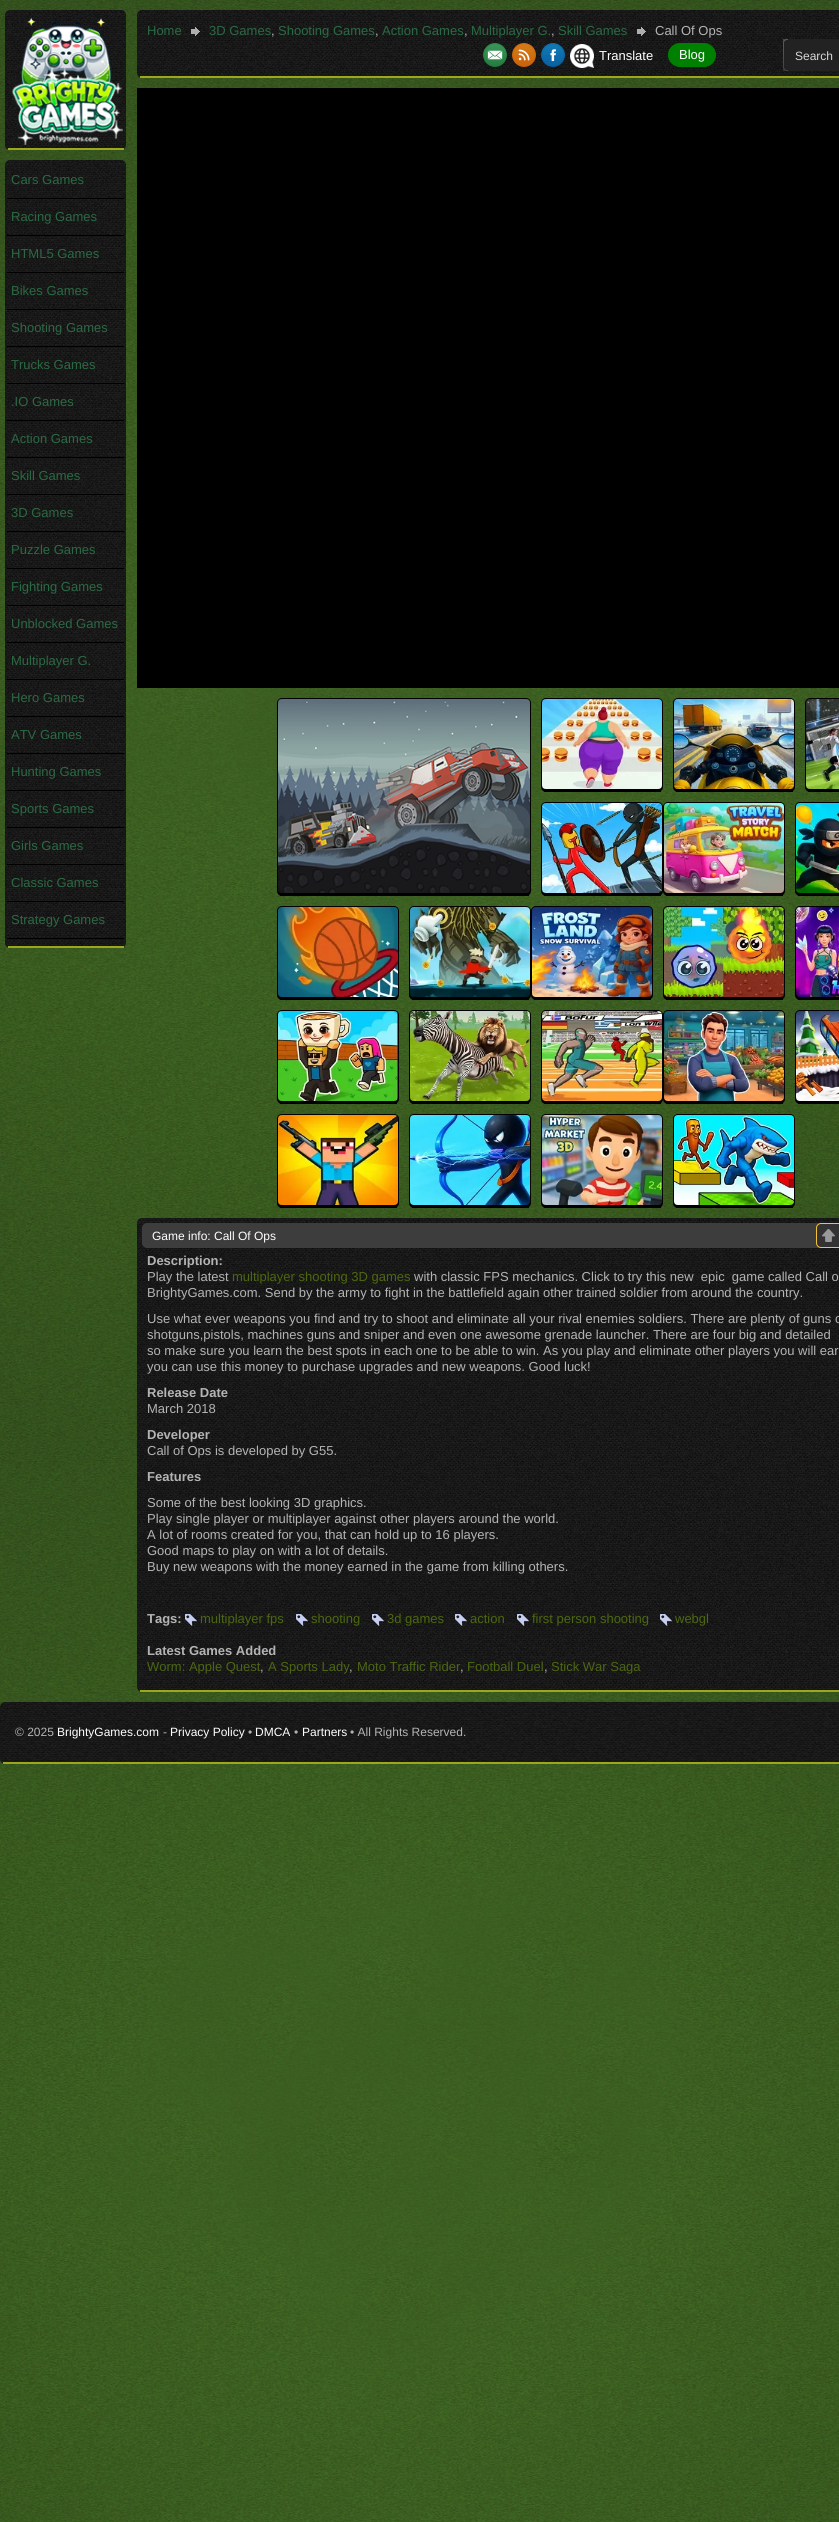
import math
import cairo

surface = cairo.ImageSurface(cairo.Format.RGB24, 839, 2522)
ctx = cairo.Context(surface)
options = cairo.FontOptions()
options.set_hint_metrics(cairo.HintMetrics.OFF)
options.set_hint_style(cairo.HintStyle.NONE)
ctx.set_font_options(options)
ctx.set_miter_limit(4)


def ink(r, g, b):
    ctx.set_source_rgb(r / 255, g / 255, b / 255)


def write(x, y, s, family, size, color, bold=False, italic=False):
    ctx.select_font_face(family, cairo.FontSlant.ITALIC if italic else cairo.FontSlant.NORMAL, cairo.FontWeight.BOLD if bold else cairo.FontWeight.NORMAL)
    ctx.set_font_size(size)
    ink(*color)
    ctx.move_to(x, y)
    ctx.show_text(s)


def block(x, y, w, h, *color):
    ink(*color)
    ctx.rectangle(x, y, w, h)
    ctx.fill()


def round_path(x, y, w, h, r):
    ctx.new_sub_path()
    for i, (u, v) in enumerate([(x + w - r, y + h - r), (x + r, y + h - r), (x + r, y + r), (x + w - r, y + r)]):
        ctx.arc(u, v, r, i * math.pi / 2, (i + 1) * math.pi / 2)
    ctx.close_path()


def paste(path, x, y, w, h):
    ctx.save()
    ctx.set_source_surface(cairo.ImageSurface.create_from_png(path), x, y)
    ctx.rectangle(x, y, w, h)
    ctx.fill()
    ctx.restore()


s1 = dict(family="Liberation Sans", size=13, color=(43, 105, 68))
s2 = dict(family="Liberation Sans", size=13, color=(180, 180, 180))
s3 = dict(family="Liberation Sans", size=13, color=(255, 255, 255))
s4 = dict(family="Liberation Sans", size=12, color=(214, 214, 214))
s5 = dict(family="Liberation Sans", size=12, color=(255, 255, 255))
s6 = dict(family="Liberation Sans", size=13, color=(180, 180, 180), bold=True)
s7 = dict(family="Liberation Sans", size=13, color=(76, 103, 17))
s8 = dict(family="Liberation Sans", size=12, color=(180, 180, 180))

ink(255, 255, 255)
ctx.paint()
paste("pic1.png", 0, 0, 839, 2522)
paste("pic2.png", 5, 10, 121, 140)
block(8, 148, 116, 2, 156, 167, 27)
paste("pic3.png", 11, 16, 112, 129)
paste("pic4.png", 137, 10, 702, 68)
block(140, 76, 699, 2, 156, 167, 27)
write(147, 35, "Home", **s1)
paste("pic5.png", 191, 27, 9, 9)
write(209, 35, "3D Games", **s1)
write(271, 35, ",", **s2)
write(278, 35, "Shooting Games", **s1)
write(375, 35, ",", **s2)
write(382, 35, "Action Games", **s1)
write(464, 35, ",", **s2)
write(471, 35, "Multiplayer G.", **s1)
write(551, 35, ",", **s2)
write(558, 35, "Skill Games", **s1)
paste("pic6.png", 637, 27, 9, 9)
write(655, 35, "Call Of Ops", **s2)
paste("pic7.png", 483, 43, 24, 24)
paste("pic8.png", 512, 43, 24, 24)
paste("pic9.png", 541, 43, 24, 24)
paste("pic10.png", 570, 44, 24, 24)
write(599, 60, "Translate", **s3)
ink(0, 128, 0)
round_path(668.5, 43.5, 47, 23, 11.5)
ctx.fill_preserve()
ctx.set_line_width(1)
ctx.stroke()
write(679, 59, "Blog", **s3)
block(788, 39, 51, 32, 34, 34, 34)
paste("pic11.png", 783, 39, 5, 32)
write(795, 60, "Search", **s4)
paste("pic12.png", 5, 160, 121, 788)
block(8, 946, 116, 2, 156, 167, 27)
block(7, 198, 117, 1, 0, 0, 0)
write(11, 184, "Cars Games", **s1)
block(7, 235, 117, 1, 0, 0, 0)
write(11, 221, "Racing Games", **s1)
block(7, 272, 117, 1, 0, 0, 0)
write(11, 258, "HTML5 Games", **s1)
block(7, 309, 117, 1, 0, 0, 0)
write(11, 295, "Bikes Games", **s1)
block(7, 346, 117, 1, 0, 0, 0)
write(11, 332, "Shooting Games", **s1)
block(7, 383, 117, 1, 0, 0, 0)
write(11, 369, "Trucks Games", **s1)
block(7, 420, 117, 1, 0, 0, 0)
write(11, 406, ".IO Games", **s1)
block(7, 457, 117, 1, 0, 0, 0)
write(11, 443, "Action Games", **s1)
block(7, 494, 117, 1, 0, 0, 0)
write(11, 480, "Skill Games", **s1)
block(7, 531, 117, 1, 0, 0, 0)
write(11, 517, "3D Games", **s1)
block(7, 568, 117, 1, 0, 0, 0)
write(11, 554, "Puzzle Games", **s1)
block(7, 605, 117, 1, 0, 0, 0)
write(11, 591, "Fighting Games", **s1)
block(7, 642, 117, 1, 0, 0, 0)
write(11, 628, "Unblocked Games", **s1)
block(7, 679, 117, 1, 0, 0, 0)
write(11, 665, "Multiplayer G.", **s1)
block(7, 716, 117, 1, 0, 0, 0)
write(11, 702, "Hero Games", **s1)
block(7, 753, 117, 1, 0, 0, 0)
write(11, 739, "ATV Games", **s1)
block(7, 790, 117, 1, 0, 0, 0)
write(11, 776, "Hunting Games", **s1)
block(7, 827, 117, 1, 0, 0, 0)
write(11, 813, "Sports Games", **s1)
block(7, 864, 117, 1, 0, 0, 0)
write(11, 850, "Girls Games", **s1)
block(7, 901, 117, 1, 0, 0, 0)
write(11, 887, "Classic Games", **s1)
block(7, 938, 117, 1, 0, 0, 0)
write(11, 924, "Strategy Games", **s1)
block(137, 88, 702, 600, 0, 0, 0)
round_path(277, 698, 254, 198, 5)
ctx.fill()
block(280, 895, 249, 1, 0, 0, 0)
paste("pic13.png", 278, 699, 252, 194)
round_path(541, 698, 122, 94, 5)
ctx.fill()
block(544, 791, 117, 1, 0, 0, 0)
paste("pic14.png", 542, 699, 120, 90)
round_path(673, 698, 122, 94, 5)
ctx.fill()
block(676, 791, 117, 1, 0, 0, 0)
paste("pic15.png", 674, 699, 120, 90)
round_path(805, 698, 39, 94, 5)
ctx.fill()
block(808, 791, 2, 1, 0, 0, 0)
paste("pic16.png", 806, 699, 33, 90)
round_path(541, 802, 122, 94, 5)
ctx.fill()
block(544, 895, 117, 1, 0, 0, 0)
paste("pic17.png", 542, 803, 120, 90)
round_path(663, 802, 122, 94, 5)
ctx.fill()
block(666, 895, 117, 1, 0, 0, 0)
paste("pic18.png", 664, 803, 120, 90)
round_path(795, 802, 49, 94, 5)
ctx.fill()
block(798, 895, 2, 1, 0, 0, 0)
paste("pic19.png", 796, 803, 43, 90)
round_path(277, 906, 122, 94, 5)
ctx.fill()
block(280, 999, 117, 1, 0, 0, 0)
paste("pic20.png", 278, 907, 120, 90)
round_path(409, 906, 122, 94, 5)
ctx.fill()
block(412, 999, 117, 1, 0, 0, 0)
paste("pic21.png", 410, 907, 120, 90)
round_path(531, 906, 122, 94, 5)
ctx.fill()
block(534, 999, 117, 1, 0, 0, 0)
paste("pic22.png", 532, 907, 120, 90)
round_path(663, 906, 122, 94, 5)
ctx.fill()
block(666, 999, 117, 1, 0, 0, 0)
paste("pic23.png", 664, 907, 120, 90)
round_path(795, 906, 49, 94, 5)
ctx.fill()
block(798, 999, 2, 1, 0, 0, 0)
paste("pic24.png", 796, 907, 43, 90)
round_path(277, 1010, 122, 94, 5)
ctx.fill()
block(280, 1103, 117, 1, 0, 0, 0)
paste("pic25.png", 278, 1011, 120, 90)
round_path(409, 1010, 122, 94, 5)
ctx.fill()
block(412, 1103, 117, 1, 0, 0, 0)
paste("pic26.png", 410, 1011, 120, 90)
round_path(541, 1010, 122, 94, 5)
ctx.fill()
block(544, 1103, 117, 1, 0, 0, 0)
paste("pic27.png", 542, 1011, 120, 90)
round_path(663, 1010, 122, 94, 5)
ctx.fill()
block(666, 1103, 117, 1, 0, 0, 0)
paste("pic28.png", 664, 1011, 120, 90)
round_path(795, 1010, 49, 94, 5)
ctx.fill()
block(798, 1103, 2, 1, 0, 0, 0)
paste("pic29.png", 796, 1011, 43, 90)
round_path(277, 1114, 122, 94, 5)
ctx.fill()
block(280, 1207, 117, 1, 0, 0, 0)
paste("pic30.png", 278, 1115, 120, 90)
round_path(409, 1114, 122, 94, 5)
ctx.fill()
block(412, 1207, 117, 1, 0, 0, 0)
paste("pic31.png", 410, 1115, 120, 90)
round_path(541, 1114, 122, 94, 5)
ctx.fill()
block(544, 1207, 117, 1, 0, 0, 0)
paste("pic32.png", 542, 1115, 120, 90)
round_path(673, 1114, 122, 94, 5)
ctx.fill()
block(676, 1207, 117, 1, 0, 0, 0)
paste("pic33.png", 674, 1115, 120, 90)
paste("pic34.png", 137, 1218, 702, 474)
block(140, 1690, 699, 2, 156, 167, 27)
ink(61, 61, 61)
round_path(142, 1223, 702, 25, 5)
ctx.fill()
write(152, 1240, "Game info: Call Of Ops", **s5)
ink(51, 51, 51)
round_path(816, 1223, 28, 25, 5)
ctx.fill()
paste("pic35.png", 822, 1229, 13, 13)
round_path(816.5, 1223.5, 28, 24, 4.5)
ink(244, 194, 57)
ctx.stroke()
write(147, 1265, "Description:", **s6)
write(147, 1281, "Play the latest", **s2)
write(232, 1281, "multiplayer shooting 3D games", **s7)
write(414, 1281, "with classic FPS mechanics. Click to try this new  epic  game called Call o", **s2)
write(147, 1297, "BrightyGames.com. Send by the army to fight in the battlefield again other trained soldier from around the country.", **s2)
write(147, 1323, "Use what ever weapons you find and try to shoot and eliminate all your rival enemies soldiers. There are plenty of guns o", **s2)
write(147, 1339, "shotguns,pistols, machines guns and sniper and even one awesome grenade launcher. There are four big and detailed", **s2)
write(147, 1355, "so make sure you learn the best spots in each one to be able to win. As you play and eliminate other players you will ear", **s2)
write(147, 1371, "you can use this money to purchase upgrades and new weapons. Good luck!", **s2)
write(147, 1397, "Release Date", **s6)
write(147, 1413, "March 2018", **s2)
write(147, 1439, "Developer", **s6)
write(147, 1455, "Call of Ops is developed by G55.", **s2)
write(147, 1481, "Features", **s6)
write(147, 1507, "Some of the best looking 3D graphics.", **s2)
write(147, 1523, "Play single player or multiplayer against other players around the world.", **s2)
write(147, 1539, "A lot of rooms created for you, that can hold up to 16 players.", **s2)
write(147, 1555, "Good maps to play on with a lot of details.", **s2)
write(147, 1571, "Buy new weapons with the money earned in the game from killing others.", **s2)
write(147, 1623, "Tags:", **s6)
paste("pic36.png", 185, 1614, 12, 12)
write(200, 1623, "multiplayer fps", **s7)
paste("pic37.png", 296, 1614, 12, 12)
write(311, 1623, "shooting", **s7)
paste("pic38.png", 372, 1614, 12, 12)
write(387, 1623, "3d games", **s7)
paste("pic39.png", 455, 1614, 12, 12)
write(470, 1623, "action", **s7)
paste("pic38.png", 517, 1614, 12, 12)
write(532, 1623, "first person shooting", **s7)
paste("pic40.png", 660, 1614, 12, 12)
write(675, 1623, "webgl", **s7)
write(147, 1655, "Latest Games Added", **s6)
write(147, 1671, "Worm: Apple Quest", **s7)
write(260, 1671, ",", **s2)
write(268, 1671, "A Sports Lady", **s7)
write(349, 1671, ",", **s2)
write(357, 1671, "Moto Traffic Rider", **s7)
write(460, 1671, ",", **s2)
write(467, 1671, "Football Duel", **s7)
write(544, 1671, ",", **s2)
write(551, 1671, "Stick War Saga", **s7)
paste("pic41.png", 0, 1702, 839, 62)
block(3, 1762, 836, 2, 156, 167, 27)
write(15, 1736, "© 2025", **s8)
write(57, 1736, "BrightyGames.com", **s5)
write(163, 1736, "-", **s8)
write(170, 1736, "Privacy Policy", **s5)
write(248, 1736, "•", **s8)
write(255, 1736, "DMCA", **s5)
write(294, 1736, "•", **s8)
write(302, 1736, "Partners", **s5)
write(350, 1736, "• All Rights Reserved.", **s8)
surface.write_to_png("screenshot.png")
